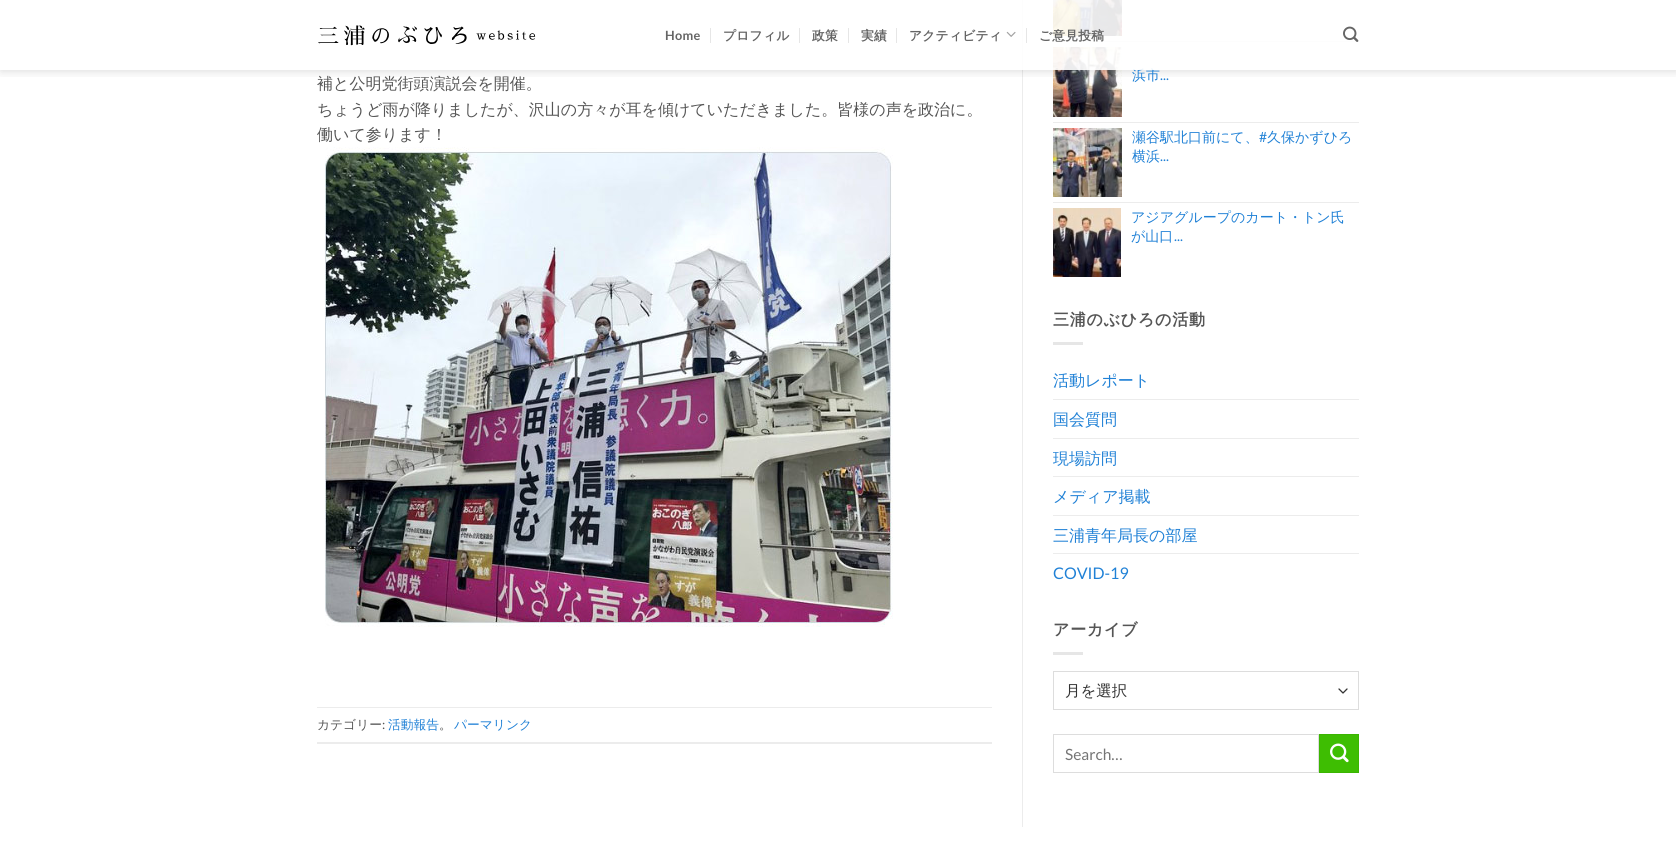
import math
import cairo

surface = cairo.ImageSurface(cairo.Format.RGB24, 1676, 851)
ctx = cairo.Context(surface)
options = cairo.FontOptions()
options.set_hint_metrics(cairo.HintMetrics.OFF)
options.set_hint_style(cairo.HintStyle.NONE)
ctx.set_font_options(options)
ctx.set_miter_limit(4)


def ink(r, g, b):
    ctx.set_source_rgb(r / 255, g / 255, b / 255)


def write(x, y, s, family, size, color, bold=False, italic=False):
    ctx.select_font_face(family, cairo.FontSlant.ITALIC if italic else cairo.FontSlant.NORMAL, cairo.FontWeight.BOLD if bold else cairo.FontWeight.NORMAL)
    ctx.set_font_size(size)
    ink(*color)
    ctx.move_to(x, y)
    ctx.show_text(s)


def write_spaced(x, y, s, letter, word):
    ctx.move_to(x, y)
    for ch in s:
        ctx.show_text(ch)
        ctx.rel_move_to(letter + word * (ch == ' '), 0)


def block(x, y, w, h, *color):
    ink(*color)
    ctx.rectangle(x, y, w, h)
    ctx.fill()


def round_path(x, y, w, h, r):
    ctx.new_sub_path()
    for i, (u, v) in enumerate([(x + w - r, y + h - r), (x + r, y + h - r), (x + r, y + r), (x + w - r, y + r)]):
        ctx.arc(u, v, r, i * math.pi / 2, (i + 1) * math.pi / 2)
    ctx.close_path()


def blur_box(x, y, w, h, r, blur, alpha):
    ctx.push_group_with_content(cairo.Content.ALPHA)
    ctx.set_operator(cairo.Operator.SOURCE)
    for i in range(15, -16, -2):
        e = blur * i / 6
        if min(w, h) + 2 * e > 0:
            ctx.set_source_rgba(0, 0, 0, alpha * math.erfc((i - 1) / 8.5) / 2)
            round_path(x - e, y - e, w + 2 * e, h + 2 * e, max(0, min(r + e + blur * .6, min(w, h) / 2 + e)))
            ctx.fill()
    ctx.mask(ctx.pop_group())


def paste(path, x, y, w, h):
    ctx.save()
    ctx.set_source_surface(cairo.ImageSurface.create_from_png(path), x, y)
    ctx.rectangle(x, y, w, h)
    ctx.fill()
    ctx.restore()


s1 = dict(family="WenQuanYi Zen Hei Medium", size=14, color=(32, 129, 214))
s2 = dict(family="WenQuanYi Zen Hei Medium", size=16, color=(85, 85, 85))
s3 = dict(family="WenQuanYi Zen Hei Medium", size=12.75, color=(85, 85, 85))
s4 = dict(family="Lato", size=12.75, color=(85, 85, 85))
s5 = dict(family="WenQuanYi Zen Hei Medium", size=12.75, color=(32, 129, 214))
s6 = dict(family="Lato", size=14, color=(32, 129, 214))
s7 = dict(family="WenQuanYi Zen Hei Medium", size=16, color=(32, 129, 214))
s8 = dict(family="Lato", size=16, color=(32, 129, 214))
s9 = dict(family="WenQuanYi Zen Hei Medium", size=15.5, color=(51, 51, 51))
s10 = dict(family="Lato", size=15.5, color=(117, 117, 117))

ink(255, 255, 255)
ctx.paint()
block(1022, 0, 1, 827, 236, 236, 236)
paste("pic5.png", 1053, 0, 69, 36)
block(1053, 41, 306, 1, 236, 236, 236)
paste("pic6.png", 1053, 47, 69, 70)
ctx.save()
ctx.rectangle(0, 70, 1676, 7)
ctx.clip()
ink(0, 0, 0)
blur_box(1, 1, 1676, 70, 0, 5, 0.15)
ctx.restore()
paste("pic1.png", 318, 25, 218, 21)
ctx.select_font_face("Lato", cairo.FontSlant.NORMAL, cairo.FontWeight.BOLD)
ctx.set_font_size(12.75)
ink(101, 101, 101)
write_spaced(665, 40, "Home", 0.25, 0)
block(710, 28, 1, 15, 230, 230, 230)
ctx.select_font_face("WenQuanYi Zen Hei", cairo.FontSlant.NORMAL, cairo.FontWeight.BOLD)
ink(101, 101, 101)
write_spaced(723, 40, "プロフィル", 0.25, 0)
block(799, 28, 1, 15, 230, 230, 230)
ink(101, 101, 101)
write_spaced(812, 40, "政策", 0.25, 0)
block(848, 28, 1, 15, 230, 230, 230)
ink(101, 101, 101)
write_spaced(861, 40, "実績", 0.25, 0)
block(896, 28, 1, 15, 230, 230, 230)
ink(101, 101, 101)
write_spaced(909, 40, "アクティビティ", 0.25, 0)
paste("pic2.png", 1006, 31, 10, 6)
write(1132, 80, "浜市", **s1)
ctx.set_source_rgba(1, 1, 1, 0.9)
ctx.rectangle(1022, 0, 337, 70)
ctx.fill()
block(1026, 28, 1, 15, 230, 230, 230)
ctx.select_font_face("WenQuanYi Zen Hei", cairo.FontSlant.NORMAL, cairo.FontWeight.BOLD)
ctx.set_font_size(12.75)
ink(101, 101, 101)
write_spaced(1039, 40, "ご意見投稿", 0.25, 0)
paste("pic3.png", 1343, 26, 16, 16)
write(317, 89, "補と公明党街頭演説会を開催。", **s2)
write(317, 115, "ちょうど雨が降りましたが、沢山の方々が耳を傾けていただきました。皆様の声を政治に。", **s2)
write(317, 140, "働いて参ります！", **s2)
paste("pic4.png", 325, 147, 568, 480)
block(317, 707, 675, 1, 236, 236, 236)
block(317, 742, 675, 2, 236, 236, 236)
write(317, 729, "カテゴリー", **s3)
write(382, 729, ":", **s4)
write(388, 729, "活動報告", **s5)
write(439, 729, "。", **s3)
write(454, 729, "パーマリンク", **s5)
write(1160, 80, "...", **s6)
block(1053, 122, 306, 1, 236, 236, 236)
paste("pic7.png", 1053, 128, 69, 69)
write(1132, 142, "瀬谷駅北口前にて、", **s1)
write(1259, 142, "#", **s6)
write(1267, 142, "久保かずひろ", **s1)
write(1132, 161, "横浜", **s1)
write(1160, 161, "...", **s6)
block(1053, 202, 306, 1, 236, 236, 236)
paste("pic8.png", 1053, 208, 68, 69)
write(1131, 222, "アジアグループのカート・トン氏", **s1)
write(1131, 241, "が山口", **s1)
write(1174, 241, "...", **s6)
ctx.select_font_face("WenQuanYi Zen Hei", cairo.FontSlant.NORMAL, cairo.FontWeight.BOLD)
ctx.set_font_size(16)
ink(85, 85, 85)
write_spaced(1053, 325, "三浦のぶひろの活動", 0.75, 0)
block(1053, 342, 30, 3, 230, 230, 230)
write(1053, 386, "活動レポート", **s7)
block(1053, 399, 306, 1, 236, 236, 236)
write(1053, 425, "国会質問", **s7)
block(1053, 438, 306, 1, 236, 236, 236)
write(1053, 464, "現場訪問", **s7)
block(1053, 476, 306, 1, 236, 236, 236)
write(1053, 502, "メディア掲載", **s7)
block(1053, 515, 306, 1, 236, 236, 236)
write(1053, 541, "三浦青年局長の部屋", **s7)
block(1053, 553, 306, 1, 236, 236, 236)
write(1053, 579, "COVID-19", **s8)
ctx.select_font_face("WenQuanYi Zen Hei", cairo.FontSlant.NORMAL, cairo.FontWeight.BOLD)
ink(85, 85, 85)
write_spaced(1053, 635, "アーカイブ", 0.75, 0)
block(1053, 652, 30, 3, 230, 230, 230)
ctx.new_path()
ctx.move_to(1339, 689)
ctx.line_to(1343, 693)
ctx.line_to(1347, 689)
ink(51, 51, 51)
ctx.set_line_width(1.3)
ctx.set_line_cap(cairo.LineCap.ROUND)
ctx.set_line_join(cairo.LineJoin.ROUND)
ctx.stroke()
ctx.rectangle(1053.5, 671.5, 305, 38)
ink(221, 221, 221)
ctx.set_line_width(1)
ctx.set_line_cap(cairo.LineCap.BUTT)
ctx.set_line_join(cairo.LineJoin.MITER)
ctx.stroke()
write(1065, 696, "月を選択", **s9)
ctx.rectangle(1053.5, 734.5, 265, 38)
ink(221, 221, 221)
ctx.stroke()
write(1065, 760, "Search…", **s10)
ink(62, 190, 2)
ctx.rectangle(1319.5, 734.5, 39, 38)
ctx.fill_preserve()
ink(59, 181, 2)
ctx.stroke()
paste("pic9.png", 1330, 743, 19, 20)
surface.write_to_png("screenshot.png")
